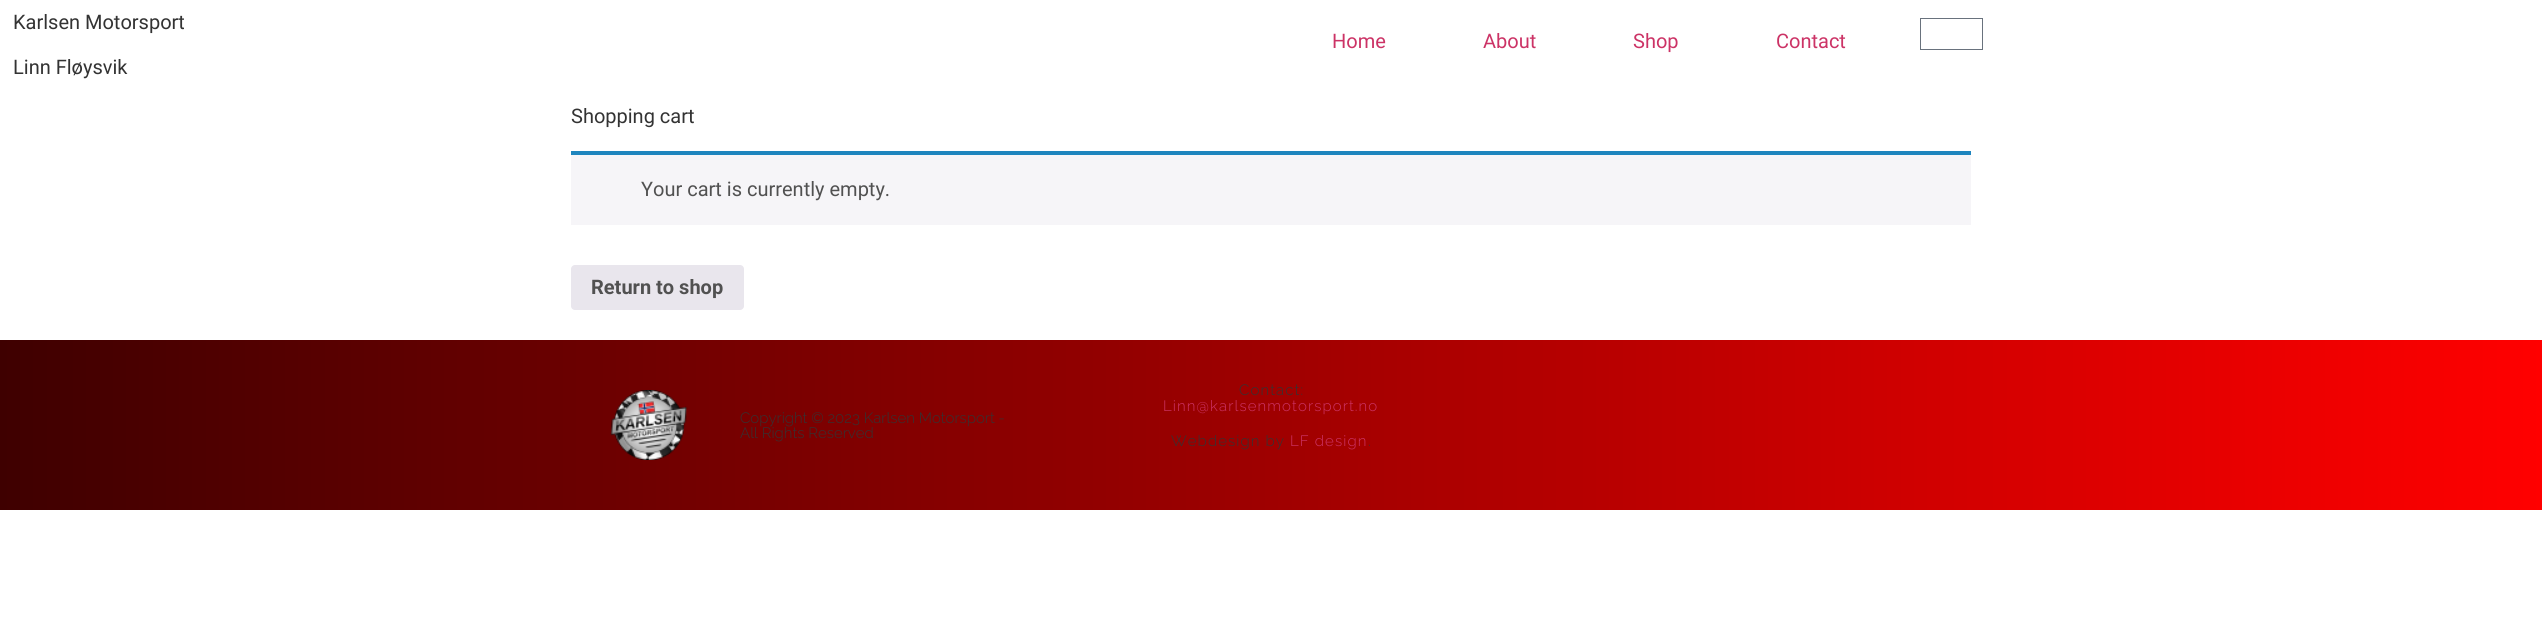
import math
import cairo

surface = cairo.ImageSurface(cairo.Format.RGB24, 2542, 635)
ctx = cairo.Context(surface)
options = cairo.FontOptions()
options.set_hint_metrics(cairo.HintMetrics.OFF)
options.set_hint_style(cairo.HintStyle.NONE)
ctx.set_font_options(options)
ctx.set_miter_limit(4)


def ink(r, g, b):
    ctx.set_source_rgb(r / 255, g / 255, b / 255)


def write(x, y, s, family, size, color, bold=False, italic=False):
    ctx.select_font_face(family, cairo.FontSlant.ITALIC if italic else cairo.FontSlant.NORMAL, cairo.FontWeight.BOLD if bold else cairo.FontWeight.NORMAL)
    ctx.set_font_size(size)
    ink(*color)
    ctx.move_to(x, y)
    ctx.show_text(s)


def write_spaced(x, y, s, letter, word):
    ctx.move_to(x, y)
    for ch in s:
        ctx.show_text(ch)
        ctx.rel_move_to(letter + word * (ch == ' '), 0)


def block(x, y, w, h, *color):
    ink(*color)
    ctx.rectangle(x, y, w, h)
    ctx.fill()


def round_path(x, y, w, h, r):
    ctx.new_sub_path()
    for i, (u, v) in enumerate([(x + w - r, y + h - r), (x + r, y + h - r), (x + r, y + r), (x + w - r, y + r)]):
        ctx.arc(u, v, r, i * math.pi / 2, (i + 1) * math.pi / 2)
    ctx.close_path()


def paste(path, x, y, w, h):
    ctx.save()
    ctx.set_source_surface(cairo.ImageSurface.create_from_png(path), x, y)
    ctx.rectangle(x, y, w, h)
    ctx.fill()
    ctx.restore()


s1 = dict(family="Roboto", size=20, color=(51, 51, 51))
s2 = dict(family="Roboto", size=20, color=(204, 51, 102))
s3 = dict(family="Roboto", size=20, color=(81, 81, 81))
s4 = dict(family="Roboto", size=20, color=(81, 81, 81), bold=True)
s5 = dict(family="Raleway Light", size=15, color=(51, 51, 51))

ink(255, 255, 255)
ctx.paint()
write(13, 29, "Karlsen Motorsport", **s1)
write(13, 74, "Linn Fløysvik", **s1)
write(1332, 48, "Home", **s2)
write(1483, 48, "About", **s2)
write(1633, 48, "Shop", **s2)
write(1776, 48, "Contact", **s2)
ctx.rectangle(1920.5, 18.5, 62, 31)
ink(105, 114, 125)
ctx.set_line_width(1)
ctx.stroke()
write(571, 123, "Shopping cart", **s1)
block(571, 155, 1400, 70, 246, 245, 248)
block(571, 151, 1400, 4, 30, 133, 190)
write(641, 196, "Your cart is currently empty.", **s3)
ink(233, 230, 237)
round_path(571, 265, 173, 45, 4)
ctx.fill()
write(591, 294, "Return to shop", **s4)
gradient = cairo.LinearGradient(0, 425, 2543, 425)
gradient.add_color_stop_rgba(0, 0.247, 0, 0, 1)
gradient.add_color_stop_rgba(1, 1, 0, 0, 1)
ctx.set_source(gradient)
ctx.rectangle(0, 340, 2542, 170)
ctx.fill()
paste("pic1.png", 610, 390, 78, 70)
write(740, 423, "Copyright © 2023 Karlsen Motorsport -", **s5)
write(740, 438, "All Rights Reserved", **s5)
write_spaced(1239, 395, "Contact:", 1.1, 0)
ink(204, 51, 102)
write_spaced(1163, 411, "Linn@karlsenmotorsport.no", 1.1, 0)
ink(51, 51, 51)
write_spaced(1171, 446, "Webdesign by", 1.1, 0)
ink(204, 51, 102)
write_spaced(1290, 446, "LF design", 1.1, 0)
ink(51, 51, 51)
write_spaced(1368, 446, ".", 1.1, 0)
surface.write_to_png("screenshot.png")
